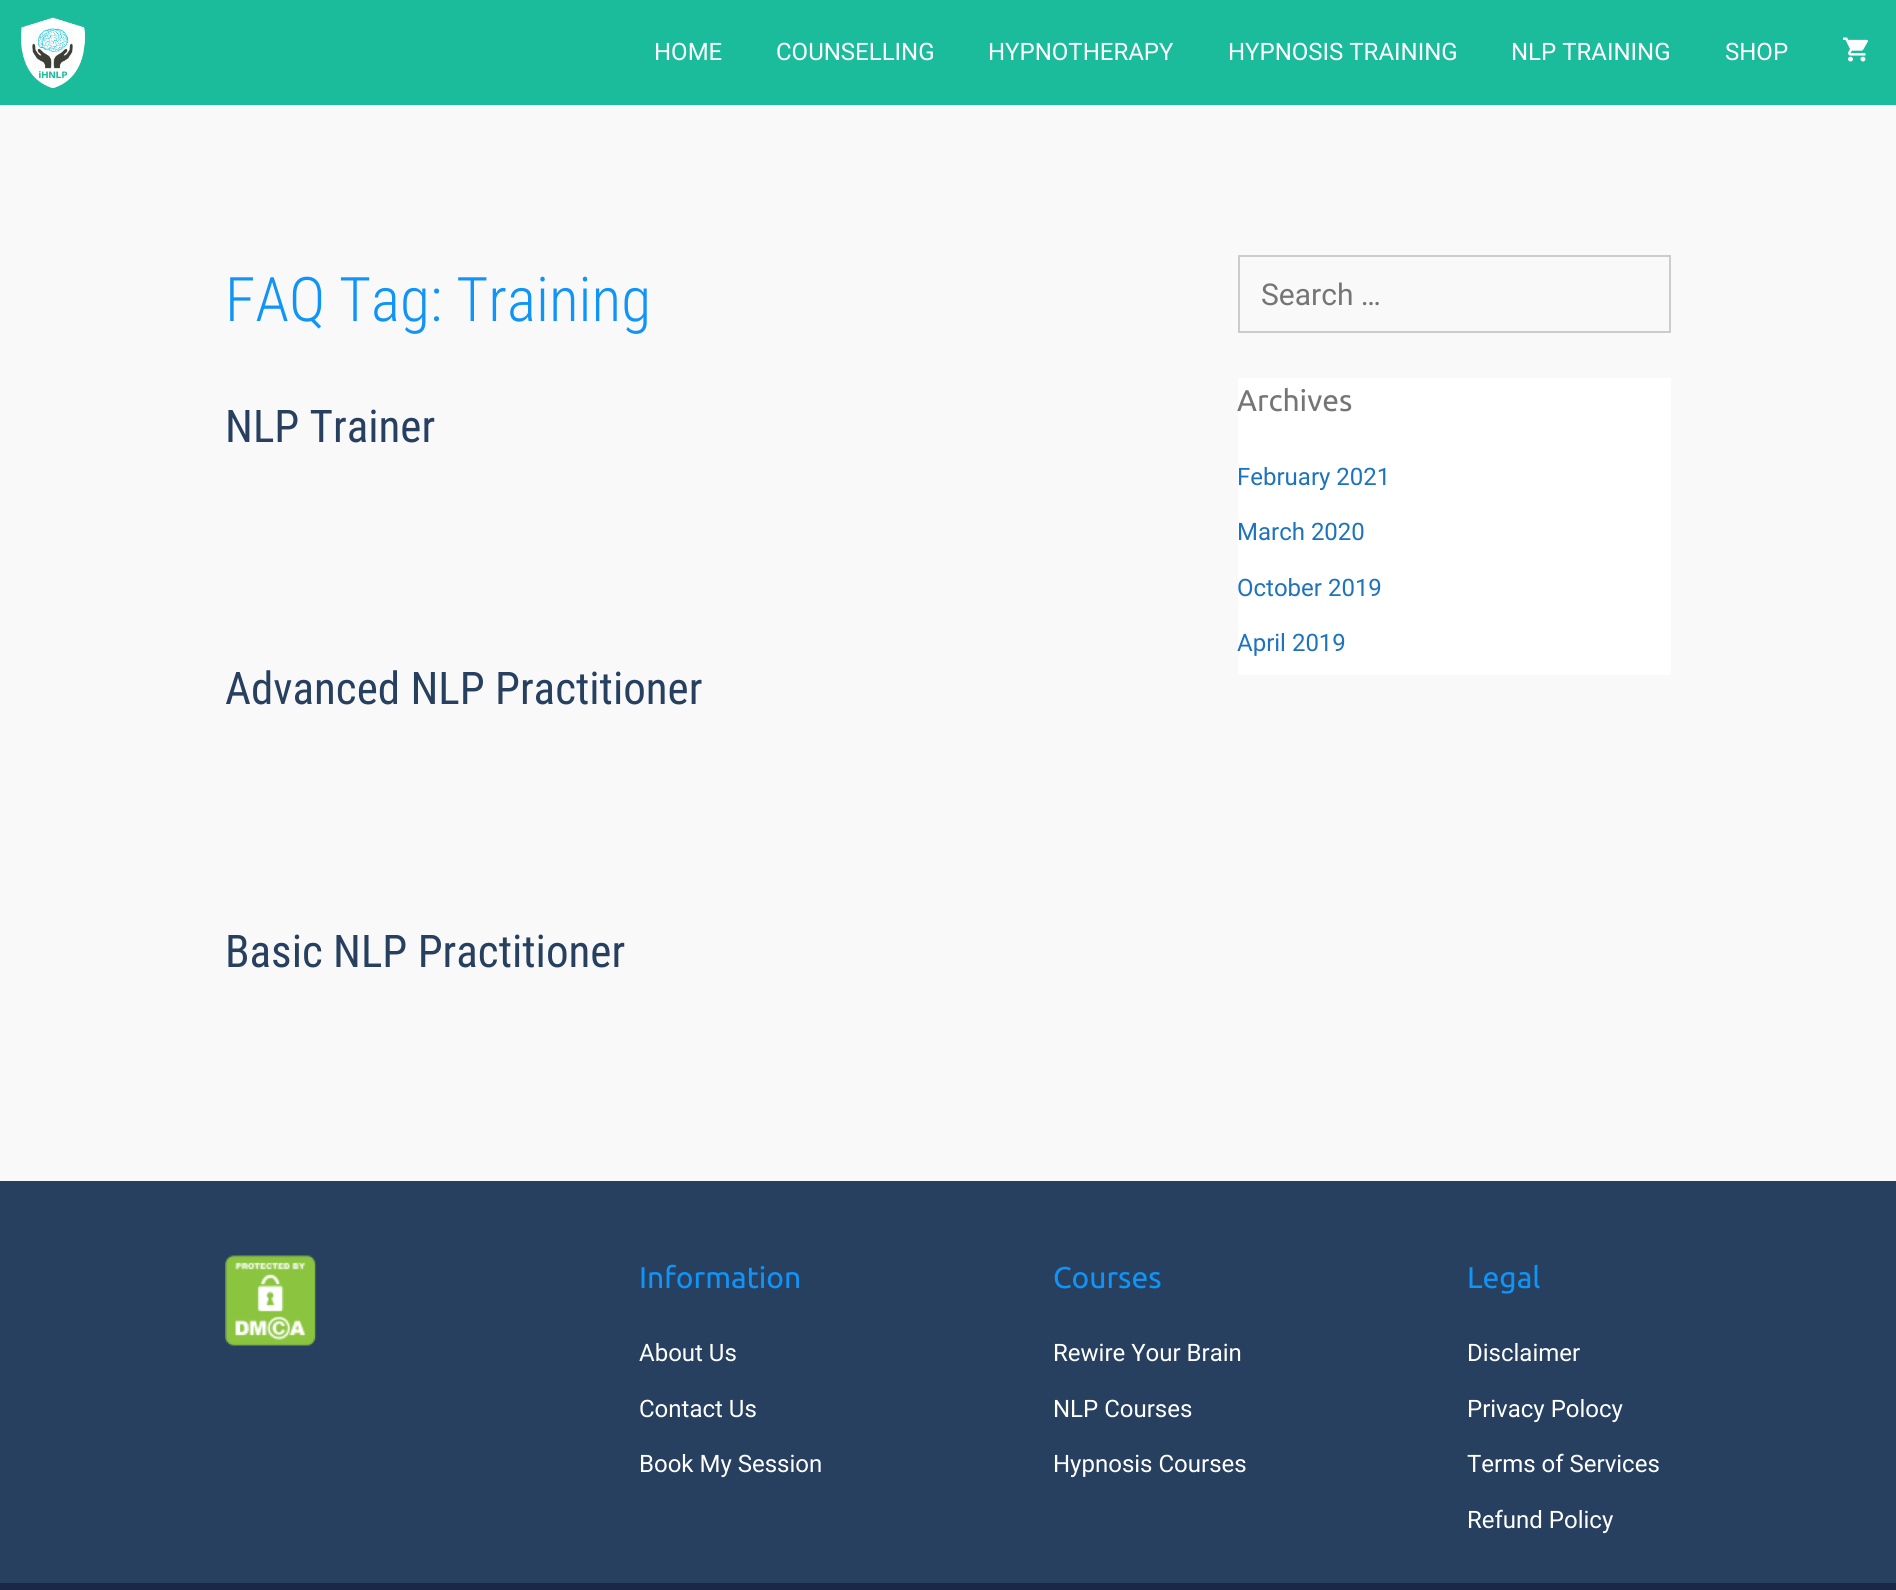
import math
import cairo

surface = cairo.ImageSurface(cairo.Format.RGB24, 1896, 1590)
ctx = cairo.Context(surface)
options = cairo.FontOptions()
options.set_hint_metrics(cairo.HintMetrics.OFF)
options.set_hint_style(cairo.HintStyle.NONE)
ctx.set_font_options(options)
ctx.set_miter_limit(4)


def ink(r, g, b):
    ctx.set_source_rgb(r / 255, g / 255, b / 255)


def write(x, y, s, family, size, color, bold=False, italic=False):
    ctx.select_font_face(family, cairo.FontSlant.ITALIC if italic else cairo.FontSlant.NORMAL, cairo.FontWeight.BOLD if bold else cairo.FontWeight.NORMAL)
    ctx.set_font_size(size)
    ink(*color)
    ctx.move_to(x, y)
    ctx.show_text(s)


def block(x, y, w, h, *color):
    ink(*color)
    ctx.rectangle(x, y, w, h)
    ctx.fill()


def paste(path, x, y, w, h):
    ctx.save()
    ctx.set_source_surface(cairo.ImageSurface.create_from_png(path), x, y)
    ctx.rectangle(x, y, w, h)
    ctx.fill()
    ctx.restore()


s1 = dict(family="Roboto", size=24, color=(255, 255, 255))
s2 = dict(family="Roboto Condensed Light", size=61.5, color=(16, 148, 247))
s3 = dict(family="Roboto Condensed", size=45, color=(39, 64, 96))
s4 = dict(family="Roboto", size=30, color=(117, 117, 117))
s5 = dict(family="Ubuntu", size=30, color=(117, 117, 117))
s6 = dict(family="Roboto", size=24, color=(30, 115, 190))
s7 = dict(family="Ubuntu", size=30, color=(16, 148, 247))

ink(26, 188, 156)
ctx.paint()
paste("pic1.png", 21, 17, 65, 72)
write(654, 60, "HOME", **s1)
write(776, 60, "COUNSELLING", **s1)
write(988, 60, "HYPNOTHERAPY", **s1)
write(1228, 60, "HYPNOSIS TRAINING", **s1)
write(1511, 60, "NLP TRAINING", **s1)
write(1725, 60, "SHOP", **s1)
paste("pic2.png", 1843, 37, 25, 25)
block(0, 105, 1896, 1076, 249, 249, 249)
write(225, 321, "FAQ Tag: Training", **s2)
write(225, 442, "NLP Trainer", **s3)
write(225, 704, "Advanced NLP Practitioner", **s3)
write(225, 967, "Basic NLP Practitioner", **s3)
ctx.rectangle(1239, 256, 431, 76)
ink(204, 204, 204)
ctx.stroke()
write(1261, 305, "Search …", **s4)
block(1238, 378, 433, 297, 255, 255, 255)
write(1237, 411, "Archives", **s5)
write(1237, 485, "February 2021", **s6)
write(1237, 540, "March 2020", **s6)
write(1237, 596, "October 2019", **s6)
write(1237, 651, "April 2019", **s6)
block(0, 1181, 1896, 402, 39, 64, 96)
paste("pic3.png", 225, 1255, 92, 91)
write(639, 1288, "Information", **s7)
write(639, 1361, "About Us", **s1)
write(639, 1417, "Contact Us", **s1)
write(639, 1472, "Book My Session", **s1)
write(1053, 1288, "Courses", **s7)
write(1053, 1361, "Rewire Your Brain", **s1)
write(1053, 1417, "NLP Courses", **s1)
write(1053, 1472, "Hypnosis Courses", **s1)
write(1467, 1288, "Legal", **s7)
write(1467, 1361, "Disclaimer", **s1)
write(1467, 1417, "Privacy Polocy", **s1)
write(1467, 1472, "Terms of Services", **s1)
write(1467, 1528, "Refund Policy", **s1)
block(0, 1583, 1896, 7, 27, 40, 69)
surface.write_to_png("screenshot.png")
